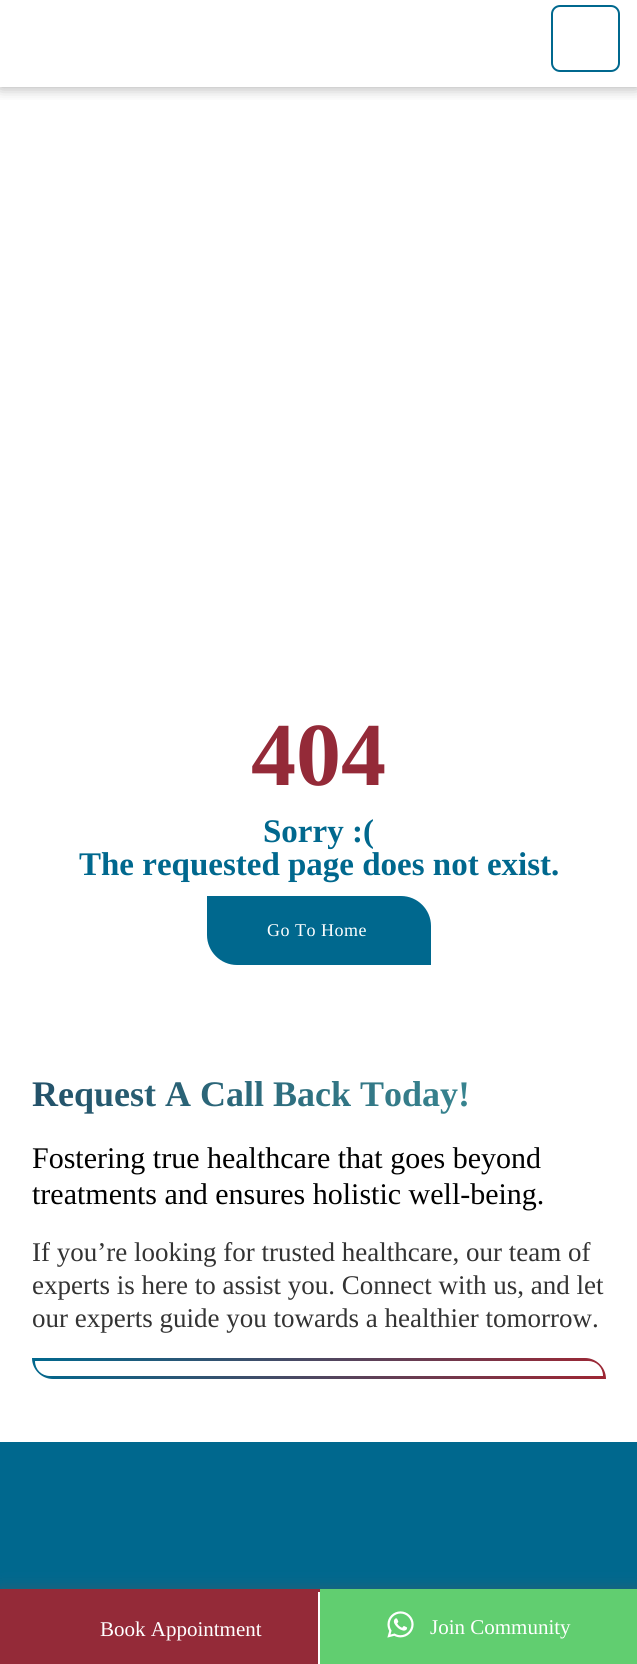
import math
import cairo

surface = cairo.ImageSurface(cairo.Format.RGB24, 637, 1664)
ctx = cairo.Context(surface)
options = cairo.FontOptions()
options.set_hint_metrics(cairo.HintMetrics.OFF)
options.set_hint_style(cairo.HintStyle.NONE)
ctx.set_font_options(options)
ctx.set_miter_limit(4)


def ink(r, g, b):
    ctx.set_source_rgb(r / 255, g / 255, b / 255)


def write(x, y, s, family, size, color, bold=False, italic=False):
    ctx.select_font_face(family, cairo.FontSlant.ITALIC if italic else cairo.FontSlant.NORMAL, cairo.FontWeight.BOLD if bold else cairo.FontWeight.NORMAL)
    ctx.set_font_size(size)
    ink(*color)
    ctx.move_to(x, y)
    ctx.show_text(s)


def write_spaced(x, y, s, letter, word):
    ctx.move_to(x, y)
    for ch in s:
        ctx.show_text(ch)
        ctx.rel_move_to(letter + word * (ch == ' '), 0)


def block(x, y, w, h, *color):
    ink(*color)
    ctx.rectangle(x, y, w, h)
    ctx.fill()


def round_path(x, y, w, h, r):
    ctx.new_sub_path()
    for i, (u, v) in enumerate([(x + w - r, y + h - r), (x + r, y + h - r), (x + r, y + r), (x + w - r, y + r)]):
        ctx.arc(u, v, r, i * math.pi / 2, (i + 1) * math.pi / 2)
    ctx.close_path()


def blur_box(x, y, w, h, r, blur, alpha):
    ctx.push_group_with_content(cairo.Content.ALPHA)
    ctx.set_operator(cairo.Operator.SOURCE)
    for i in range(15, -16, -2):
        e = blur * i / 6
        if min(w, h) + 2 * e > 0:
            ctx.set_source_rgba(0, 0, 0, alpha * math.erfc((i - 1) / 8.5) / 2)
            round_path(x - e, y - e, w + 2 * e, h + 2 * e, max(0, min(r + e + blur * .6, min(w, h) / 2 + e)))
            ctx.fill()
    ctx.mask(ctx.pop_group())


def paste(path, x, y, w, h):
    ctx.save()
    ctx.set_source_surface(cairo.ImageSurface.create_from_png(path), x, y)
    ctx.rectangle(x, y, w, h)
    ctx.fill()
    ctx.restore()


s1 = dict(family="Liberation Serif", size=90, color=(148, 42, 56), bold=True)
s2 = dict(family="Liberation Serif", size=33, color=(0, 104, 142), bold=True)
s3 = dict(family="Liberation Serif", size=30, color=(0, 0, 0))
s4 = dict(family="Liberation Serif", size=27, color=(51, 51, 51))
s5 = dict(family="Liberation Serif", size=21, color=(255, 255, 255))

ink(255, 255, 255)
ctx.paint()
write(251, 785, "404", **s1)
write(263, 842, "Sorry :(", **s2)
write(79, 875, "The requested page does not exist.", **s2)
ctx.new_path()
ctx.move_to(207, 896)
ctx.line_to(401, 896)
ctx.curve_to(417.5, 896, 431, 909.5, 431, 926)
ctx.line_to(431, 965)
ctx.line_to(237, 965)
ctx.curve_to(220.5, 965, 207, 951.5, 207, 935)
ctx.close_path()
ctx.fill()
ctx.select_font_face("Liberation Serif")
ctx.set_font_size(18)
ink(255, 255, 255)
write_spaced(267, 936, "Go To Home", 0.5, 0)
ctx.select_font_face("Liberation Serif", cairo.FontSlant.NORMAL, cairo.FontWeight.BOLD)
ctx.set_font_size(36)
gradient = cairo.LinearGradient(32, 1094, 606, 1094)
gradient.add_color_stop_rgba(0, 0.137, 0.318, 0.412, 1)
gradient.add_color_stop_rgba(1, 0.243, 0.58, 0.608, 1)
ctx.set_source(gradient)
ctx.move_to(32, 1106)
ctx.show_text("Request A Call Back Today!")
write(32, 1168, "Fostering true healthcare that goes beyond", **s3)
write(32, 1204, "treatments and ensures holistic well-being.", **s3)
write(32, 1261, "If you’re looking for trusted healthcare, our team of", **s4)
write(32, 1294, "experts is here to assist you. Connect with us, and let", **s4)
write(32, 1327, "our experts guide you towards a healthier tomorrow.", **s4)
gradient = cairo.LinearGradient(68, 1267, 569, 1469)
gradient.add_color_stop_rgba(0, 0, 0.408, 0.557, 1)
gradient.add_color_stop_rgba(1, 0.616, 0.149, 0.2, 1)
ctx.set_source(gradient)
ctx.new_path()
ctx.move_to(32, 1358)
ctx.line_to(585, 1358)
ctx.curve_to(596.5, 1358, 606, 1367.5, 606, 1379)
ctx.line_to(53, 1379)
ctx.curve_to(41.5, 1379, 32, 1369.5, 32, 1358)
ctx.close_path()
ctx.fill()
ink(255, 255, 255)
ctx.new_path()
ctx.move_to(35, 1361)
ctx.line_to(588, 1361)
ctx.curve_to(596.5, 1361, 603, 1367.5, 603, 1376)
ctx.line_to(50, 1376)
ctx.curve_to(41.5, 1376, 35, 1369.5, 35, 1361)
ctx.close_path()
ctx.fill()
block(0, 1442, 637, 147, 0, 104, 142)
ctx.save()
ctx.rectangle(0, 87, 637, 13)
ctx.clip()
ink(75, 74, 74)
blur_box(0, 0, 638, 87, 0, 7.5, 0.5)
ctx.restore()
round_path(552, 6, 67, 65, 8)
ctx.stroke()
ink(87, 87, 87)
blur_box(0, 1589, 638, 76, 0, 7.5, 0.5)
block(0, 1589, 320, 75, 148, 42, 56)
block(318, 1592, 2, 72, 255, 255, 255)
write(100, 1636, "Book Appointment", **s5)
block(320, 1589, 317, 75, 97, 206, 112)
paste("pic1.png", 387, 1611, 27, 27)
write(430, 1634, "Join Community", **s5)
surface.write_to_png("screenshot.png")
